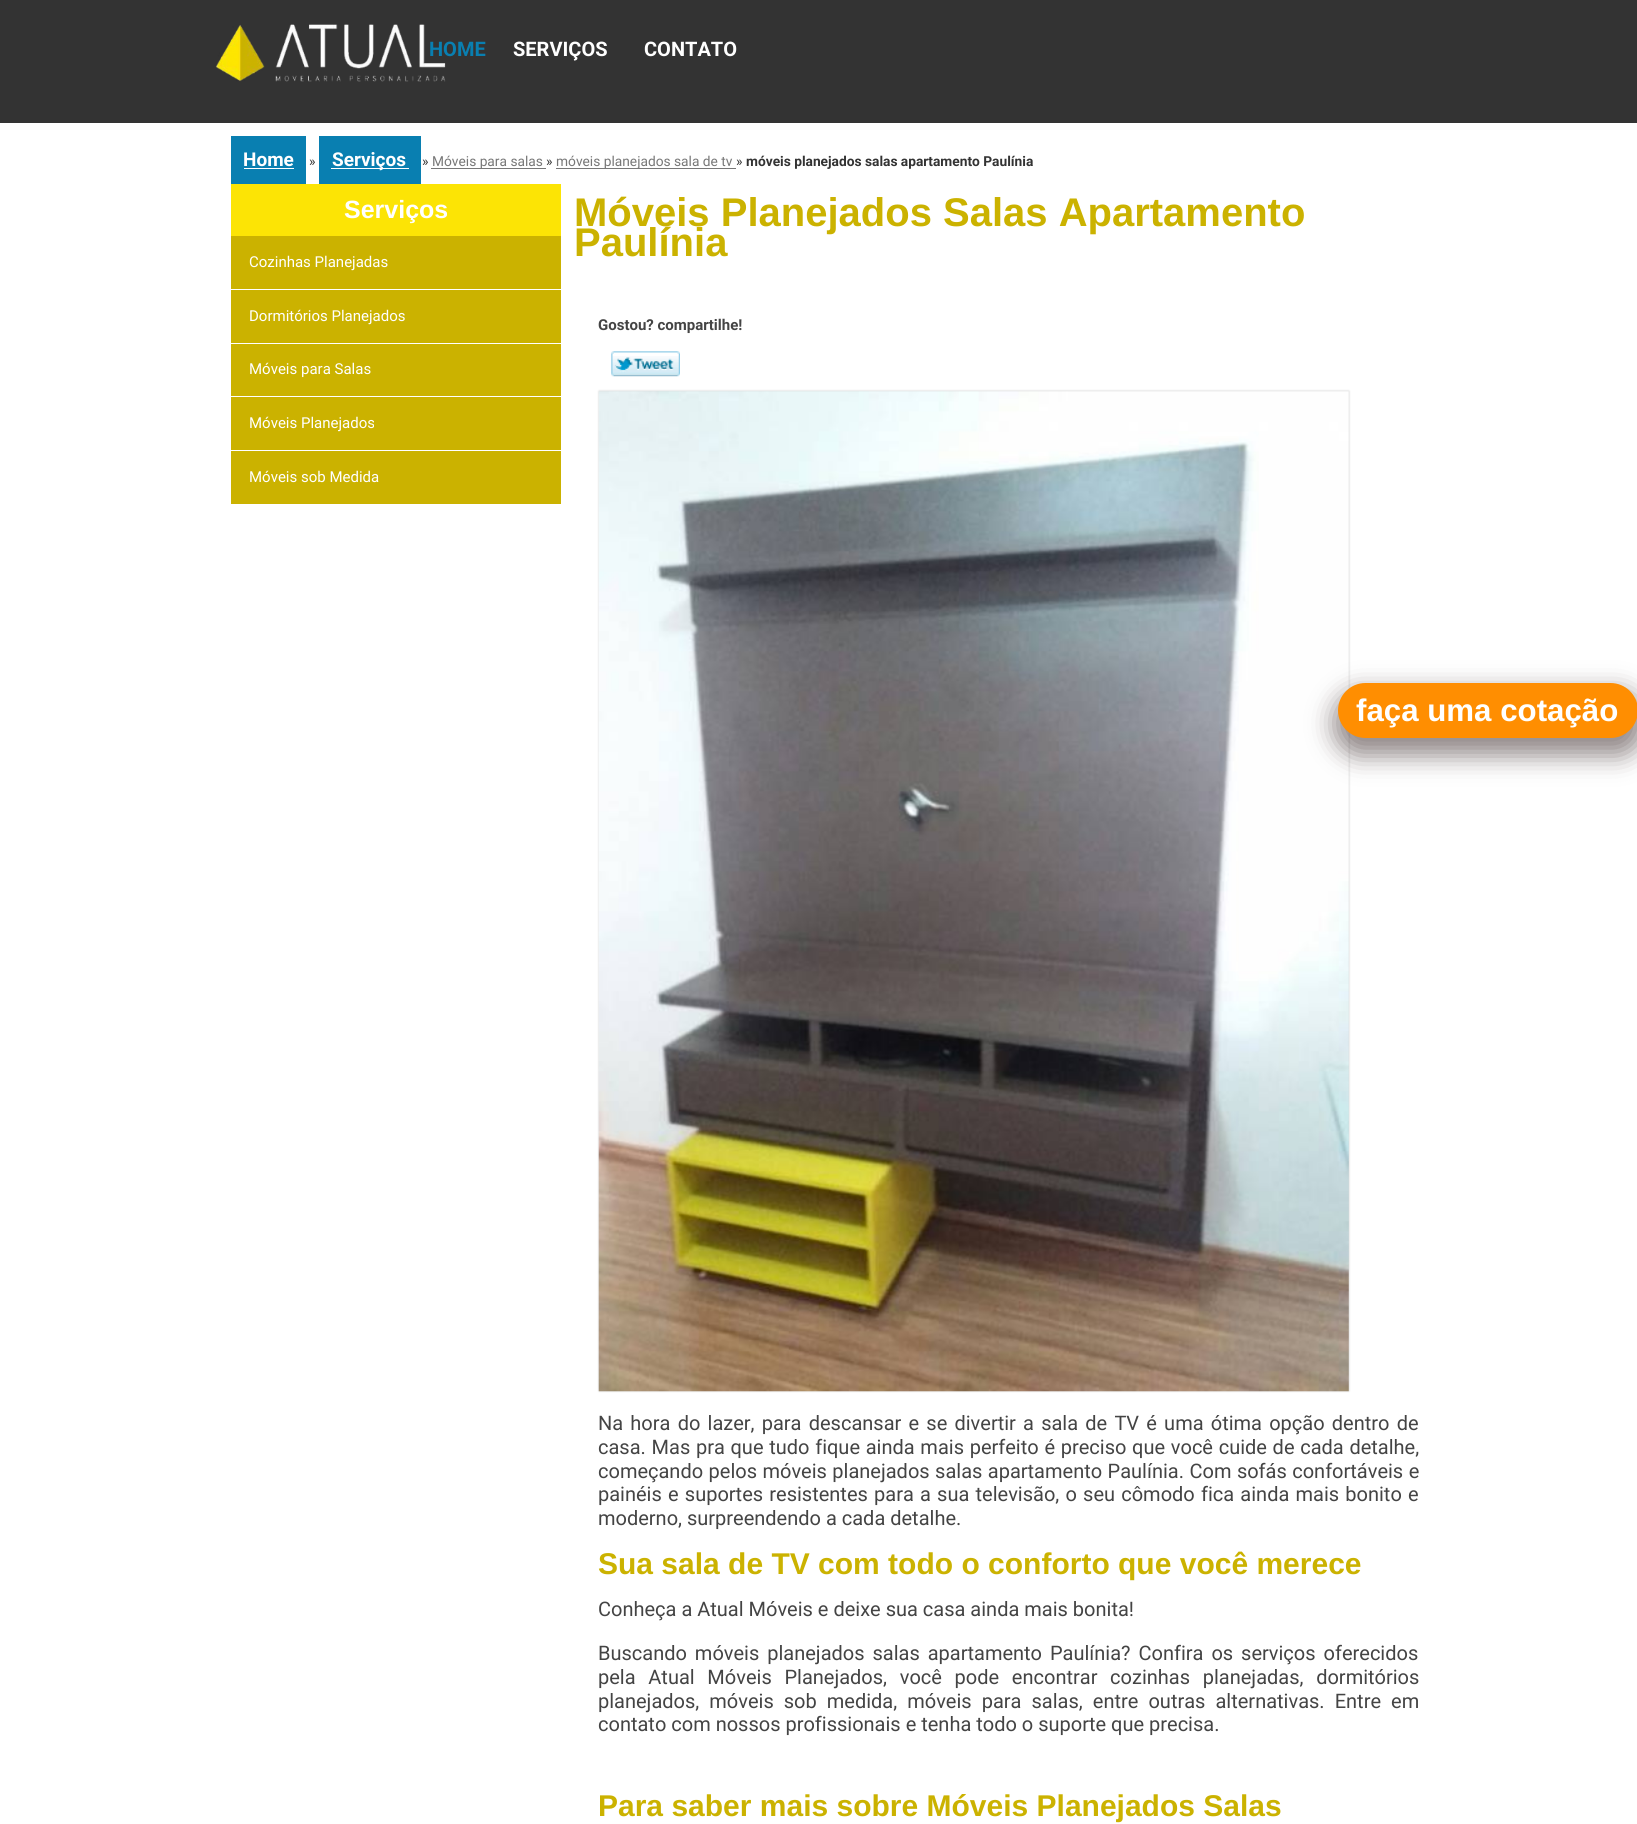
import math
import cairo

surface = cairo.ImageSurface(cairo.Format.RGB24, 1637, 1824)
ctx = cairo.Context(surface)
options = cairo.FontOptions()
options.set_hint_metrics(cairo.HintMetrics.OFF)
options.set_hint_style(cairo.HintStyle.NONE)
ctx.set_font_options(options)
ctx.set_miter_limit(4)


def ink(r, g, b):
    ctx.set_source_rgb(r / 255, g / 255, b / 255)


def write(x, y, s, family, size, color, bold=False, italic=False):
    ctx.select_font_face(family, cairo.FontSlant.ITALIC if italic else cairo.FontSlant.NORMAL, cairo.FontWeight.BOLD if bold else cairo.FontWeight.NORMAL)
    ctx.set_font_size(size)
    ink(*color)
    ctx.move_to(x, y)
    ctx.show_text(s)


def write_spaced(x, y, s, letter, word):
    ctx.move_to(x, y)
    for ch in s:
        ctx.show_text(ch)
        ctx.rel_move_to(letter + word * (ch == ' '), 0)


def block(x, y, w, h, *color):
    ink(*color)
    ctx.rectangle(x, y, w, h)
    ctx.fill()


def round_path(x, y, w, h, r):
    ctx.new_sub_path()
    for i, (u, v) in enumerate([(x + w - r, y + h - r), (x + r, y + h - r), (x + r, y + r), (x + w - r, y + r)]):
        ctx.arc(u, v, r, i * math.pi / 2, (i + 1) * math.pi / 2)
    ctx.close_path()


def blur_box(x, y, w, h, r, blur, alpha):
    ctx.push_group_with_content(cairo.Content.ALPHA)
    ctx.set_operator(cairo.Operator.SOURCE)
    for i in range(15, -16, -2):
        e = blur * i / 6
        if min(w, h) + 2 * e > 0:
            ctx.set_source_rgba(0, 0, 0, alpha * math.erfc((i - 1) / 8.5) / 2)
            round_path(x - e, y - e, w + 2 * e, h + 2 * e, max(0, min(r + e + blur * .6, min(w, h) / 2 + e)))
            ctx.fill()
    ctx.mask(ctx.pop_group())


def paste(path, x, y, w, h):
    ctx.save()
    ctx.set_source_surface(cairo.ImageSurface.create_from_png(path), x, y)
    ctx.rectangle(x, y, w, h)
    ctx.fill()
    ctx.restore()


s1 = dict(family="Roboto", size=20, color=(9, 127, 177), bold=True)
s2 = dict(family="Roboto", size=20, color=(255, 255, 255), bold=True)
s3 = dict(family="Roboto", size=19, color=(255, 255, 255), bold=True)
s4 = dict(family="Roboto", size=13.75, color=(51, 51, 51))
s5 = dict(family="Roboto", size=13.75, color=(119, 119, 119))
s6 = dict(family="Roboto", size=13.75, color=(51, 51, 51), bold=True)
s7 = dict(family="Liberation Sans", size=25, color=(255, 255, 255), bold=True)
s8 = dict(family="Roboto", size=15, color=(255, 255, 255))
s9 = dict(family="Liberation Sans", size=40, color=(203, 178, 0), bold=True)
s10 = dict(family="Roboto", size=15, color=(68, 68, 68), bold=True)
s11 = dict(family="Liberation Sans", size=31.25, color=(255, 255, 255), bold=True)
s12 = dict(family="Liberation Sans", size=30, color=(203, 178, 0), bold=True)
s13 = dict(family="Roboto", size=20, color=(68, 68, 68))

ink(255, 255, 255)
ctx.paint()
block(0, 0, 1637, 123, 51, 51, 51)
paste("pic1.png", 215, 24, 231, 58)
write(429, 56, "HOME", **s1)
write(513, 56, "SERVIÇOS", **s2)
write(644, 56, "CONTATO", **s2)
block(231, 136, 75, 48, 9, 127, 177)
write(243, 166, "Home", **s3)
block(244, 168, 50, 1, 255, 255, 255)
write(309, 166, "»", **s4)
block(319, 136, 102, 48, 9, 127, 177)
block(331, 168, 78, 1, 255, 255, 255)
write(332, 166, "Serviços", **s3)
write(422, 166, "»", **s4)
block(431, 168, 115, 1, 119, 119, 119)
write(432, 166, "Móveis para salas", **s5)
write(546, 166, "»", **s4)
block(556, 168, 180, 1, 119, 119, 119)
write(556, 166, "móveis planejados sala de tv", **s5)
write(736, 166, "»", **s4)
write(746, 166, "móveis planejados salas apartamento Paulínia", **s6)
block(231, 184, 330, 52, 252, 228, 5)
write(344, 218, "Serviços", **s7)
block(231, 236, 330, 53, 203, 178, 0)
write(249, 267, "Cozinhas Planejadas", **s8)
block(231, 290, 330, 53, 203, 178, 0)
write(249, 321, "Dormitórios Planejados", **s8)
block(231, 344, 330, 106, 203, 178, 0)
block(231, 396, 330, 1, 255, 255, 255)
write(249, 374, "Móveis para Salas", **s8)
write(249, 428, "Móveis Planejados", **s8)
block(231, 451, 330, 53, 203, 178, 0)
write(249, 482, "Móveis sob Medida", **s8)
write(574, 226, "Móveis Planejados Salas Apartamento", **s9)
write(574, 256, "Paulínia", **s9)
write(598, 330, "Gostou? compartilhe!", **s10)
paste("pic2.png", 611, 351, 69, 26)
ink(204, 204, 204)
blur_box(599, 391, 750, 1000, 0, 1, 1)
paste("pic3.png", 598, 391, 751, 1001)
ink(25, 6, 6)
blur_box(1334, 691, 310, 65, 32.5, 12.5, 0.47)
ink(255, 142, 1)
round_path(1338, 683, 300, 55, 27.5)
ctx.fill()
write(1356, 721, "faça uma cotação", **s11)
write(598, 1816, "Para saber mais sobre Móveis Planejados Salas", **s12)
ctx.select_font_face("Roboto")
ctx.set_font_size(20)
ink(68, 68, 68)
write_spaced(598, 1430, "Na hora do lazer, para descansar e se divertir a sala de TV é uma ótima opção dentro de", 0, 2.25)
write_spaced(598, 1454, "casa. Mas pra que tudo fique ainda mais perfeito é preciso que você cuide de cada detalhe,", 0, 0.75)
write_spaced(598, 1478, "começando pelos móveis planejados salas apartamento Paulínia. Com sofás confortáveis e", 0, 0.5)
write_spaced(598, 1501, "painéis e suportes resistentes para a sua televisão, o seu cômodo fica ainda mais bonito e", 0, 1.25)
write(598, 1525, "moderno, surpreendendo a cada detalhe.", **s13)
write(598, 1574, "Sua sala de TV com todo o conforto que você merece", **s12)
write(598, 1616, "Conheça a Atual Móveis e deixe sua casa ainda mais bonita!", **s13)
write_spaced(598, 1660, "Buscando móveis planejados salas apartamento Paulínia? Confira os serviços oferecidos", 0, 3)
write_spaced(598, 1684, "pela Atual Móveis Planejados, você pode encontrar cozinhas planejadas, dormitórios", 0, 7.75)
write_spaced(598, 1708, "planejados, móveis sob medida, móveis para salas, entre outras alternativas. Entre em", 0, 5.1)
write(598, 1731, "contato com nossos profissionais e tenha todo o suporte que precisa.", **s13)
surface.write_to_png("screenshot.png")
